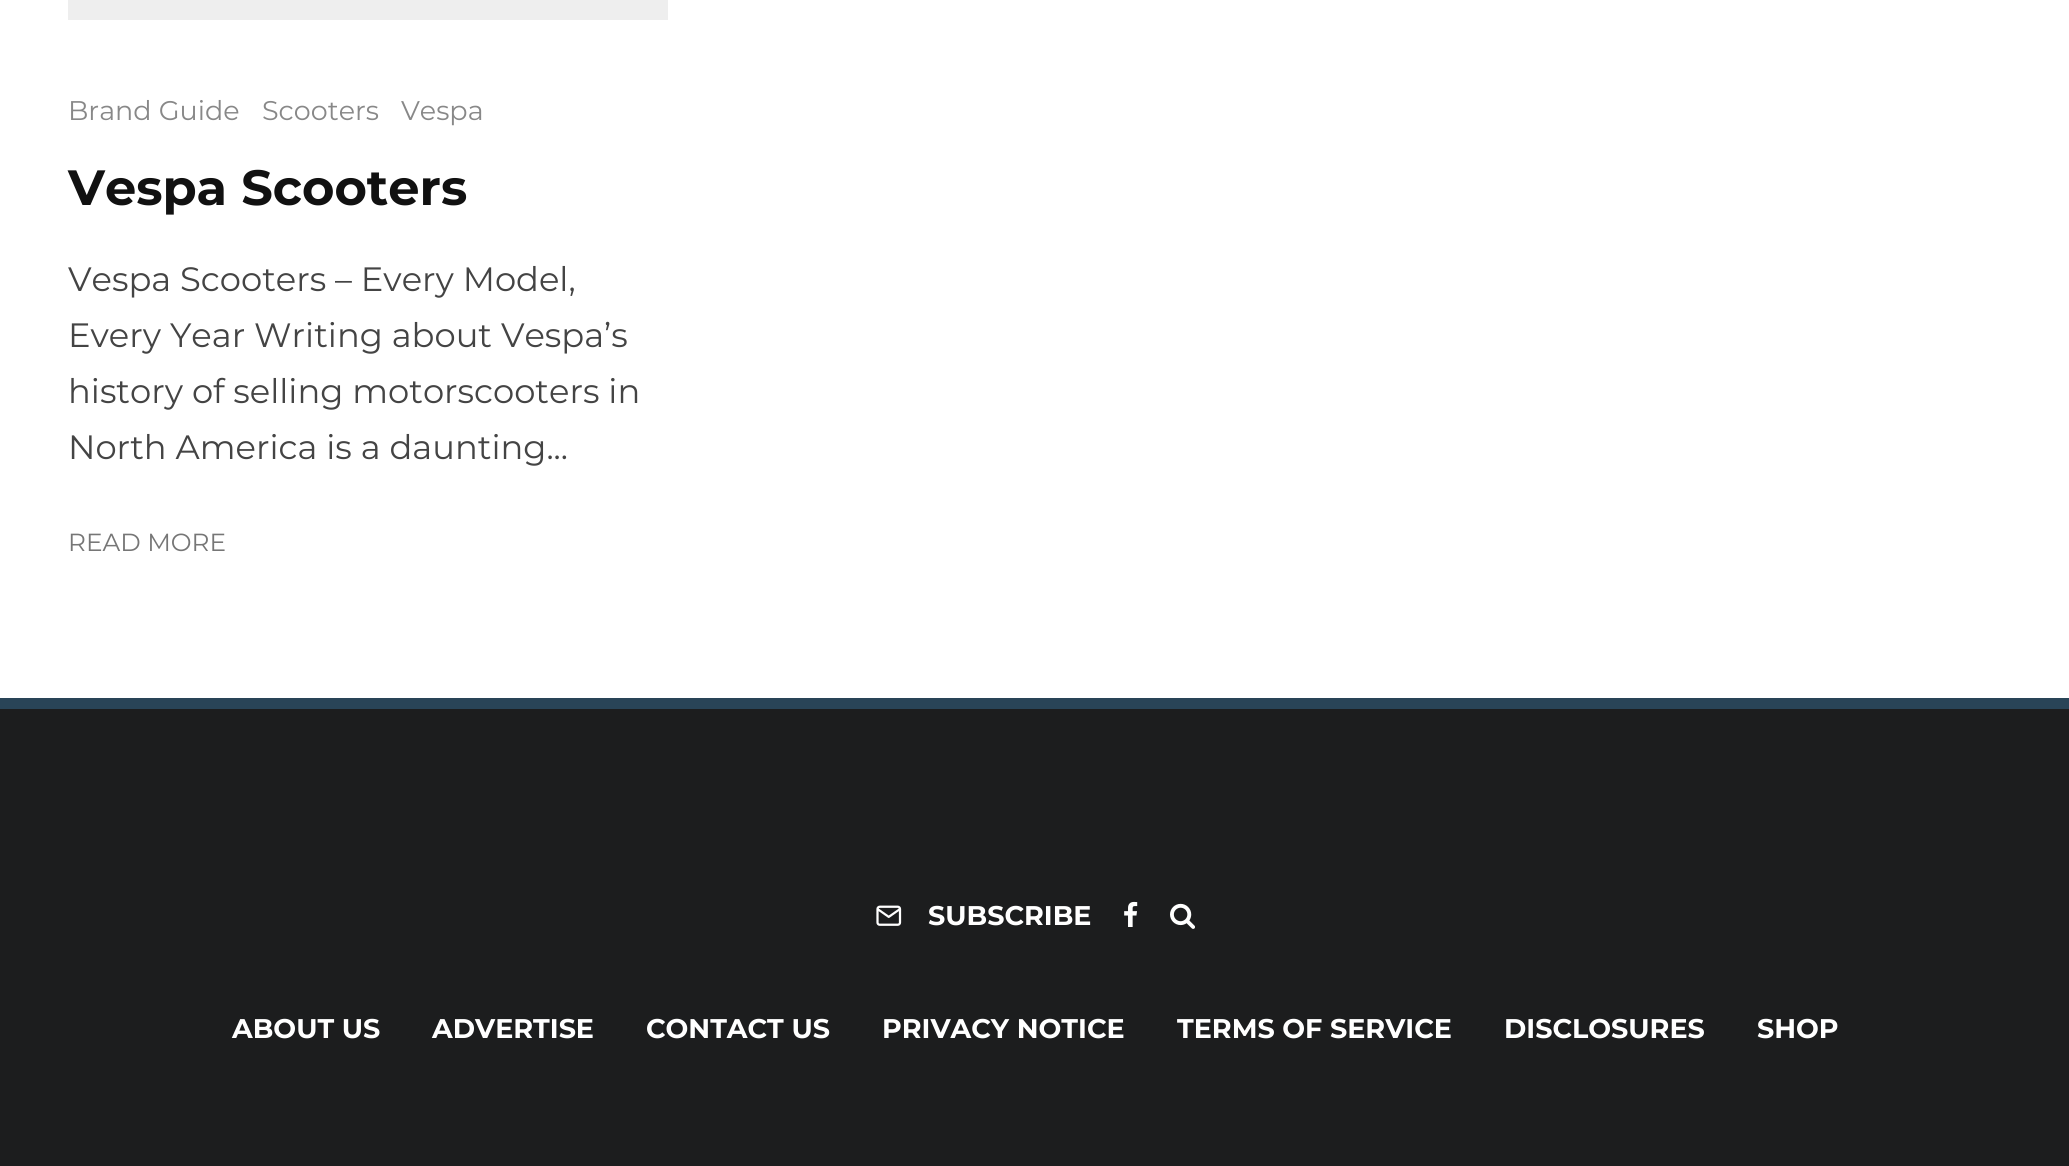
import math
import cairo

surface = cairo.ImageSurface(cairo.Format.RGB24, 2069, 1166)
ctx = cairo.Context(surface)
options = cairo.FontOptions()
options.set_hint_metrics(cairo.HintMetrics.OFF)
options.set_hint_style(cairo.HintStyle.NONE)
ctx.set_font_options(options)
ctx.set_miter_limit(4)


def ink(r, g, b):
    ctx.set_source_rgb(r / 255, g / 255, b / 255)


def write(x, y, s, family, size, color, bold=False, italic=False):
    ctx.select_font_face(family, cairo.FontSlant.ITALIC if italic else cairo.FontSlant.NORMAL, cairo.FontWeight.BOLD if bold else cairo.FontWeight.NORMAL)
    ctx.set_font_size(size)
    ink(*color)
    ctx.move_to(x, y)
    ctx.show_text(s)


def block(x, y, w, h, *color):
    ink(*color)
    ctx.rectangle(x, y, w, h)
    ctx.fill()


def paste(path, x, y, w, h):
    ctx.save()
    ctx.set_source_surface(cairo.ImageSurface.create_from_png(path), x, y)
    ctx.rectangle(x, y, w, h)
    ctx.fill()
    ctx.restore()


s1 = dict(family="Montserrat", size=27, color=(136, 136, 136))
s2 = dict(family="Montserrat", size=49.5, color=(17, 17, 17), bold=True)
s3 = dict(family="Montserrat", size=33.75, color=(68, 68, 68))
s4 = dict(family="Montserrat", size=24.75, color=(118, 118, 118))
s5 = dict(family="Montserrat", size=27, color=(255, 255, 255), bold=True)

ink(255, 255, 255)
ctx.paint()
block(68, 0, 600, 20, 238, 238, 238)
write(68, 120, "Brand Guide", **s1)
write(262, 120, "Scooters", **s1)
write(401, 120, "Vespa", **s1)
write(68, 205, "Vespa Scooters", **s2)
write(68, 291, "Vespa Scooters – Every Model,", **s3)
write(68, 347, "Every Year Writing about Vespa’s", **s3)
write(68, 403, "history of selling motorscooters in", **s3)
write(68, 459, "North America is a daunting...", **s3)
write(68, 551, "READ MORE", **s4)
block(0, 698, 2069, 11, 41, 68, 87)
block(0, 709, 2069, 457, 28, 29, 30)
paste("pic1.png", 876, 905, 26, 21)
write(928, 925, "SUBSCRIBE", **s5)
paste("pic2.png", 1124, 901, 14, 26)
paste("pic3.png", 1170, 903, 25, 26)
write(232, 1038, "ABOUT US", **s5)
write(432, 1038, "ADVERTISE", **s5)
write(646, 1038, "CONTACT US", **s5)
write(882, 1038, "PRIVACY NOTICE", **s5)
write(1177, 1038, "TERMS OF SERVICE", **s5)
write(1504, 1038, "DISCLOSURES", **s5)
write(1757, 1038, "SHOP", **s5)
surface.write_to_png("screenshot.png")
